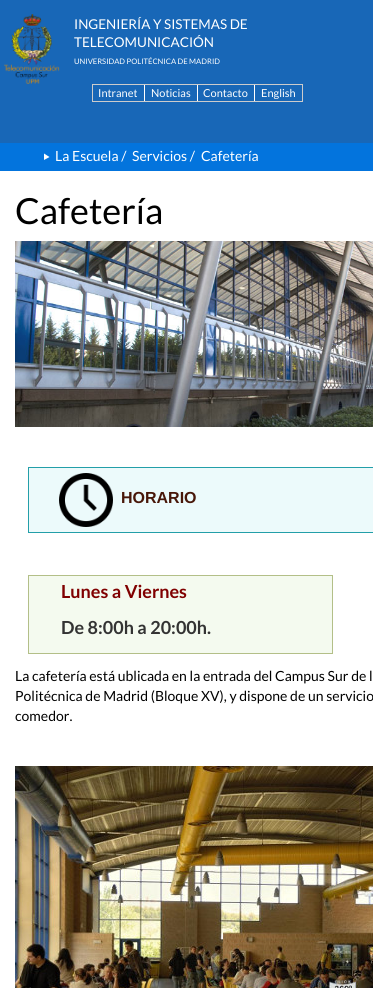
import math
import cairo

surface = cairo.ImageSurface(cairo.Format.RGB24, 373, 988)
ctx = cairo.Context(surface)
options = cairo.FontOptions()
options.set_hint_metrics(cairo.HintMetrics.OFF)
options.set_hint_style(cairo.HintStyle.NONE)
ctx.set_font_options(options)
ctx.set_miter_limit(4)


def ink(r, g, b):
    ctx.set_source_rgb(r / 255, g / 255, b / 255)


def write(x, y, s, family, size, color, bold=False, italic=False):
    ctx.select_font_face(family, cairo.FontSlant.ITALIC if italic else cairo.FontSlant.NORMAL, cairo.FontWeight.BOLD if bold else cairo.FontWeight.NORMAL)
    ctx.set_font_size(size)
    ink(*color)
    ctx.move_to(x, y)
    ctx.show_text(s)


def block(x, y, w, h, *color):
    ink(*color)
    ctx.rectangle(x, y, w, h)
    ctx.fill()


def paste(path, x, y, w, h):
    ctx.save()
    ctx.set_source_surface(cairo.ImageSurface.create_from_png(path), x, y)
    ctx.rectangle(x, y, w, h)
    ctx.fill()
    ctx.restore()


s1 = dict(family="Lato", size=13.5, color=(255, 255, 255))
s2 = dict(family="Lato", size=7.6, color=(255, 255, 255))
s3 = dict(family="Lato", size=11, color=(255, 255, 255))
s4 = dict(family="Lato", size=14, color=(255, 255, 255))
s5 = dict(family="Lato", size=36, color=(0, 0, 0))
s6 = dict(family="Liberation Sans", size=16, color=(72, 23, 9), bold=True)
s7 = dict(family="Lato", size=18, color=(128, 0, 0), bold=True)
s8 = dict(family="Lato", size=18, color=(51, 51, 51), bold=True)
s9 = dict(family="Lato", size=14, color=(0, 0, 0))

ink(255, 255, 255)
ctx.paint()
block(0, 0, 373, 143, 24, 103, 183)
paste("pic1.png", 4, 14, 56, 70)
write(74, 29, "INGENIERÍA Y SISTEMAS DE", **s1)
write(74, 47, "TELECOMUNICACIÓN", **s1)
write(74, 64, "UNIVERSIDAD POLITÉCNICA DE MADRID", **s2)
ctx.rectangle(92.5, 84.5, 210, 17)
ink(204, 204, 204)
ctx.set_line_width(1)
ctx.stroke()
block(144, 85, 1, 16, 255, 255, 255)
write(98, 97, "Intranet", **s3)
block(197, 85, 1, 16, 255, 255, 255)
write(151, 97, "Noticias", **s3)
block(254, 85, 1, 16, 255, 255, 255)
write(203, 97, "Contacto", **s3)
write(261, 97, "English", **s3)
block(0, 143, 373, 28, 3, 116, 221)
ink(255, 255, 255)
ctx.new_path()
ctx.move_to(44, 160)
ctx.line_to(49.5, 157)
ctx.line_to(44, 153.5)
ctx.close_path()
ctx.fill()
write(55, 161, "La Escuela /", **s4)
write(132, 161, "Servicios /", **s4)
write(201, 161, "Cafetería", **s4)
write(15, 224, "Cafetería", **s5)
paste("pic2.png", 15, 241, 358, 186)
ink(236, 250, 251)
ctx.rectangle(28.5, 467.5, 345, 65)
ctx.fill_preserve()
ink(35, 159, 169)
ctx.stroke()
paste("pic3.png", 59, 473, 54, 54)
write(121, 503, "HORARIO", **s6)
block(29, 576, 303, 77, 244, 250, 239)
block(28, 575, 305, 1, 179, 191, 136)
block(332, 575, 1, 79, 179, 191, 136)
block(28, 653, 305, 1, 179, 191, 136)
block(28, 575, 1, 79, 179, 191, 136)
write(61, 598, "Lunes a Viernes", **s7)
write(61, 634, "De 8:00h a 20:00h.", **s8)
write(15, 681, "La cafetería está ublicada en la entrada del Campus Sur de l", **s9)
write(15, 701, "Politécnica de Madrid (Bloque XV), y dispone de un servicio", **s9)
write(15, 721, "comedor.", **s9)
paste("pic4.png", 15, 766, 358, 222)
surface.write_to_png("screenshot.png")
